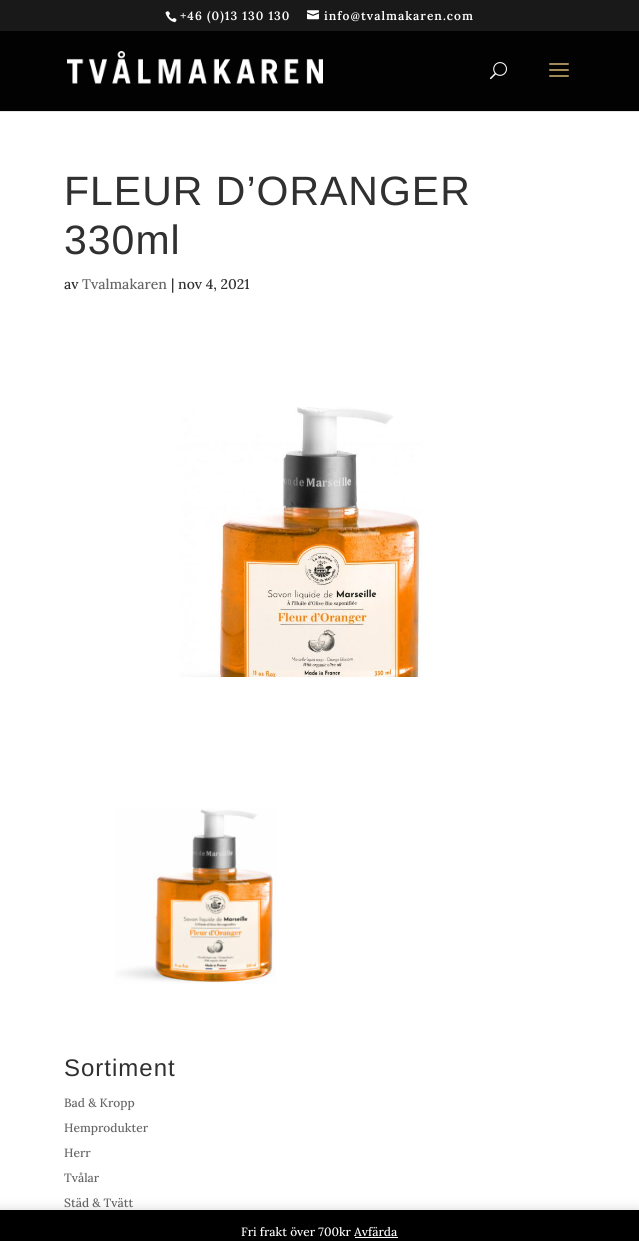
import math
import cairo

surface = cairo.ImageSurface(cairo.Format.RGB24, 639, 1241)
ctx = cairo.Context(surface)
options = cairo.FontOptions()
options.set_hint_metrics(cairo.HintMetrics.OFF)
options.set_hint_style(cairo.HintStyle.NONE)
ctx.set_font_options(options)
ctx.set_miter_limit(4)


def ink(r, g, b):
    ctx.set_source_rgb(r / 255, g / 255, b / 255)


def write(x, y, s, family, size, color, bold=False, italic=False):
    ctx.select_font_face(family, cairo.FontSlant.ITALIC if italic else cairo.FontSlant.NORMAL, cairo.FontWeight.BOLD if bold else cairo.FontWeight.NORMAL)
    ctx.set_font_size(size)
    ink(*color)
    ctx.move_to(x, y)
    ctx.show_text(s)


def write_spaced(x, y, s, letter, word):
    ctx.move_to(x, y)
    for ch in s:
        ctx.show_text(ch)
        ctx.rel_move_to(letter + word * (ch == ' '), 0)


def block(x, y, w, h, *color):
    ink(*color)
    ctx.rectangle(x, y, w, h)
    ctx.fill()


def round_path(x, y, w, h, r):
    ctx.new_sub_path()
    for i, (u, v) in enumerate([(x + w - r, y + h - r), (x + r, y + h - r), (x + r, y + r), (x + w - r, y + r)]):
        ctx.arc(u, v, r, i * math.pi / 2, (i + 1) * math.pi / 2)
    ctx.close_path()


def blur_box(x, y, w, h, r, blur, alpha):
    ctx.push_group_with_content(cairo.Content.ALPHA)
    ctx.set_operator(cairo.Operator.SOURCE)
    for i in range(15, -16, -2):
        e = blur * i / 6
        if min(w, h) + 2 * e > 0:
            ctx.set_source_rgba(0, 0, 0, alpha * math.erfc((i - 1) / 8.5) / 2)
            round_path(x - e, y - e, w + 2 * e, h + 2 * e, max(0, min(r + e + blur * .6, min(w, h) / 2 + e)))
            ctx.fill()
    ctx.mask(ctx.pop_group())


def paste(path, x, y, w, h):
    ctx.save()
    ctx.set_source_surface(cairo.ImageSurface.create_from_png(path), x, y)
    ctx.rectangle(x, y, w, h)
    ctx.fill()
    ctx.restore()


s1 = dict(family="Lora Medium", size=14, color=(48, 48, 48))
s2 = dict(family="Lora Medium", size=14, color=(102, 102, 102))
s3 = dict(family="Lora Medium", size=12, color=(102, 102, 102))
s4 = dict(family="Lora Medium", size=12, color=(252, 251, 254))

ink(255, 255, 255)
ctx.paint()
block(0, 0, 639, 31, 25, 25, 25)
paste("pic1.png", 165, 11, 12, 12)
ctx.select_font_face("Lora SemiBold")
ctx.set_font_size(12)
ink(252, 251, 254)
write_spaced(180, 20, "+46 (0)13 130 130", 1, 0)
paste("pic2.png", 307, 10, 12, 10)
write_spaced(324, 20, "info@tvalmakaren.com", 1, 0)
block(0, 111, 639, 1, 230, 230, 230)
block(0, 31, 639, 80, 2, 2, 2)
paste("pic3.png", 67, 51, 256, 33)
paste("pic4.png", 490, 62, 17, 18)
paste("pic5.png", 549, 63, 20, 14)
ctx.select_font_face("Liberation Sans")
ctx.set_font_size(41)
ink(48, 48, 48)
write_spaced(64, 205, "FLEUR D’ORANGER", 1, 0)
write_spaced(64, 254, "330ml", 1, 0)
write(64, 289, "av", **s1)
write(82, 289, "Tvalmakaren", **s2)
write(171, 289, "| nov 4, 2021", **s1)
paste("pic6.png", 179, 407, 244, 270)
paste("pic7.png", 115, 808, 161, 176)
ctx.select_font_face("Liberation Sans")
ctx.set_font_size(24)
write_spaced(64, 1076, "Sortiment", 1, 0)
write(64, 1107, "Bad & Kropp", **s3)
write(64, 1132, "Hemprodukter", **s3)
write(64, 1157, "Herr", **s3)
write(64, 1182, "Tvålar", **s3)
write(64, 1207, "Städ & Tvätt", **s3)
ink(0, 0, 0)
blur_box(0, 1211, 639, 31, 0, 6, 0.2)
block(0, 1210, 639, 31, 0, 0, 0)
write(241, 1236, "Fri frakt över 700kr Avfärda", **s4)
block(355, 1237, 43, 1, 252, 251, 254)
surface.write_to_png("screenshot.png")
